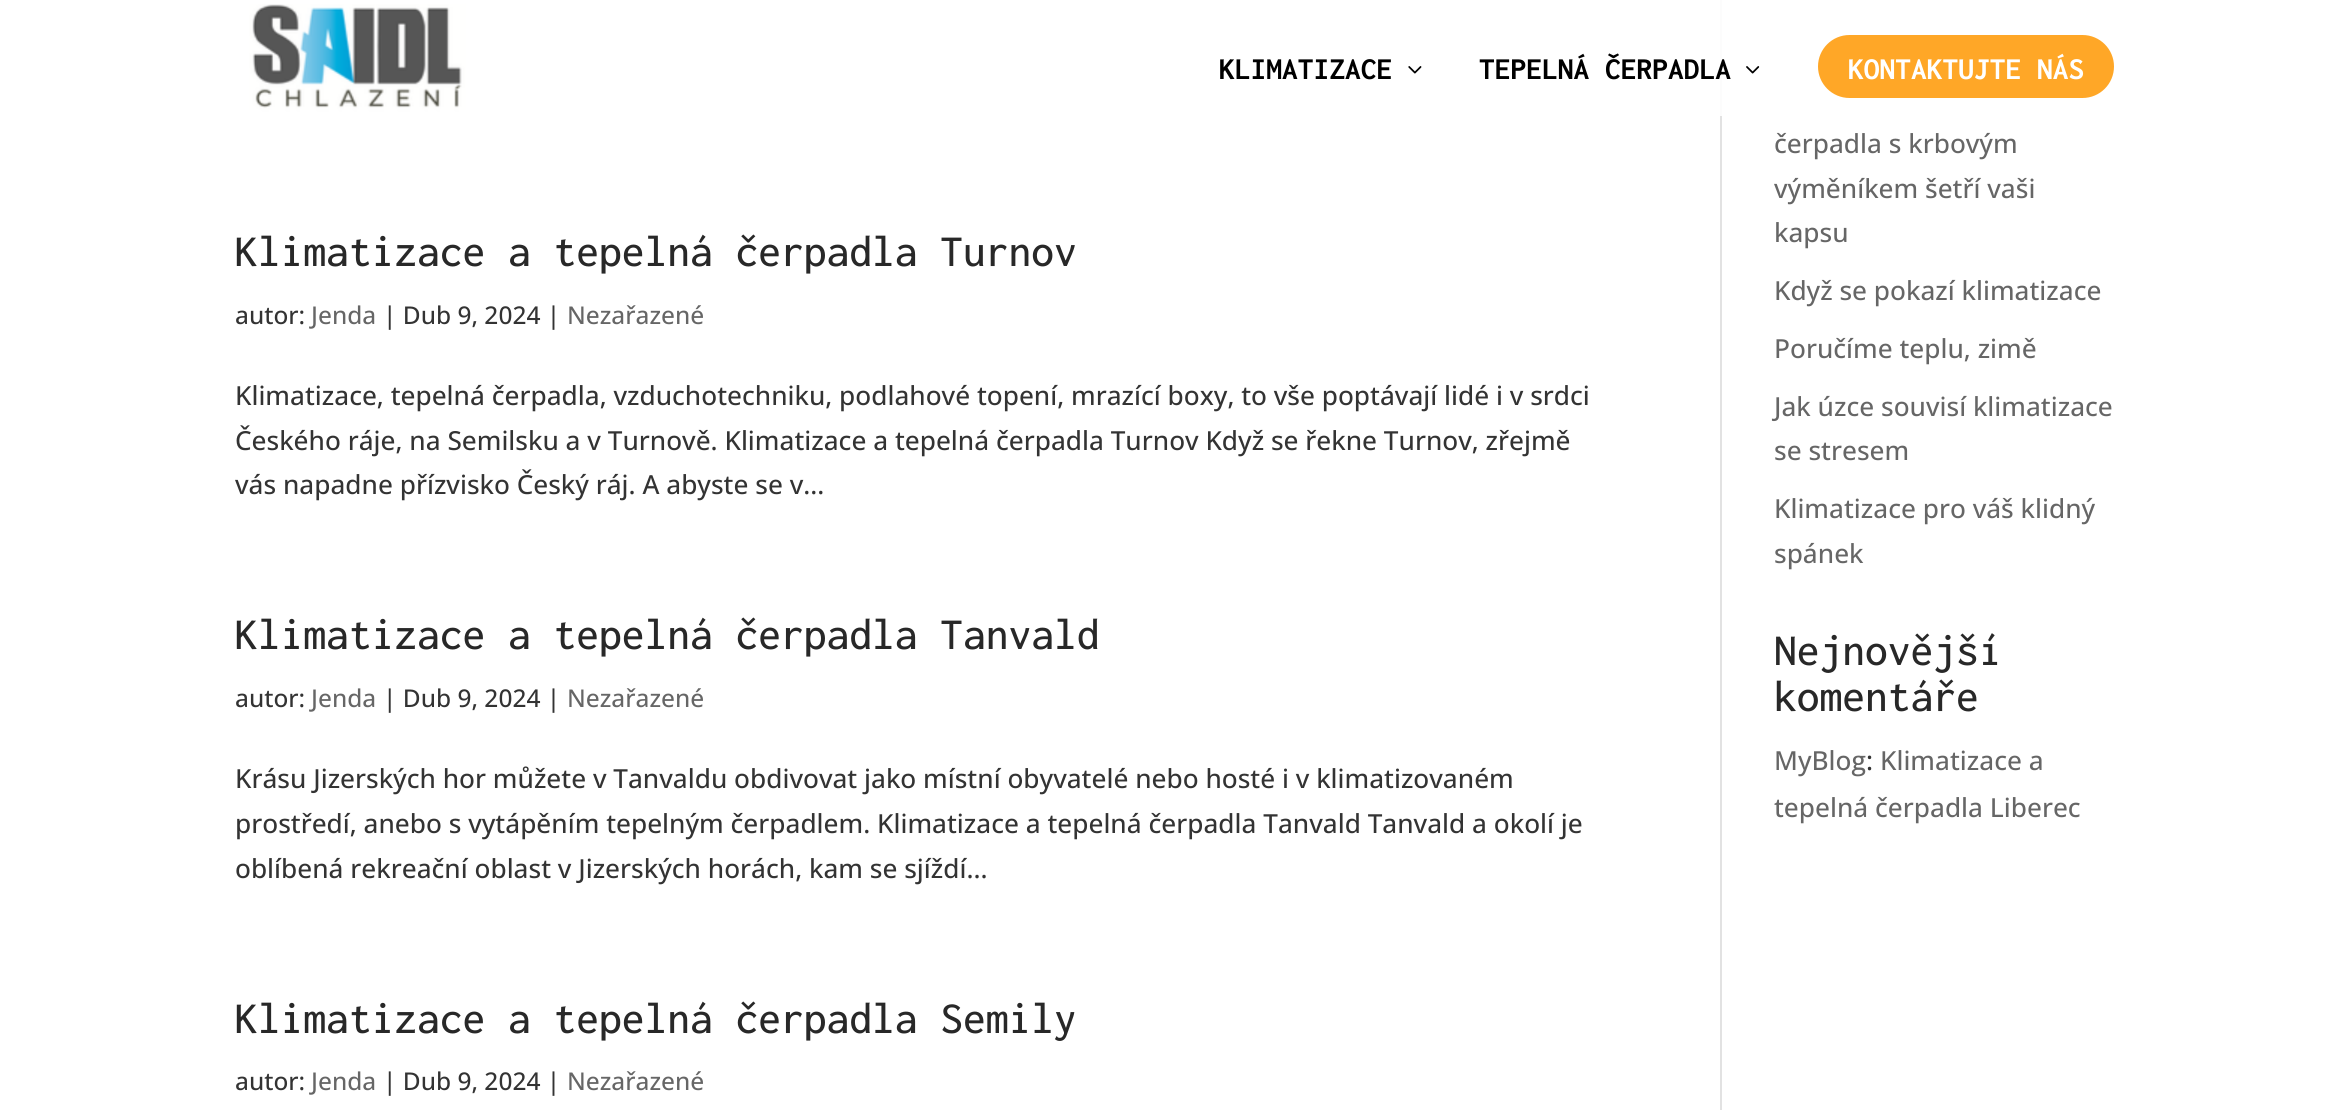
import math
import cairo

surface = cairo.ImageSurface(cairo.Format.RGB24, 2347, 1110)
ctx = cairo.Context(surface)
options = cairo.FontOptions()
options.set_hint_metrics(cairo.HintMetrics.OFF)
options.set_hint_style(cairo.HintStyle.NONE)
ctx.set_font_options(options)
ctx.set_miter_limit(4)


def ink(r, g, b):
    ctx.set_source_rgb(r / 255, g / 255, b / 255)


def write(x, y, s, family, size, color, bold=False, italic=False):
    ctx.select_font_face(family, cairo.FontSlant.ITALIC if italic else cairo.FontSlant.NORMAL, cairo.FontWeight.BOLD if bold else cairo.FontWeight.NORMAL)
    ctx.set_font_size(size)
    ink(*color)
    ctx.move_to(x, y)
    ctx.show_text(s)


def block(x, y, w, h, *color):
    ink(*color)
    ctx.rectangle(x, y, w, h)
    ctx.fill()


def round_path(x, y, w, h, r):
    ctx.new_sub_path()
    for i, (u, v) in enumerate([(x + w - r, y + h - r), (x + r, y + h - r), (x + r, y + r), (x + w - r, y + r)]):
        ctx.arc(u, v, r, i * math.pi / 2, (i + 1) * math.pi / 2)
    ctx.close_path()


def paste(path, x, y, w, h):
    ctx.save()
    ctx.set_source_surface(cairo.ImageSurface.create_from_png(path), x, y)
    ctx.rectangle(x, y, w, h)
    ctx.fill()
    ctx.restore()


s1 = dict(family="Inconsolata", size=31.5, color=(0, 0, 0), bold=True)
s2 = dict(family="Inconsolata", size=31.5, color=(255, 255, 255), bold=True)
s3 = dict(family="Inconsolata Medium", size=45.5, color=(40, 40, 40))
s4 = dict(family="Open Sans Medium", size=24.5, color=(51, 51, 51))
s5 = dict(family="Open Sans Medium", size=24.5, color=(102, 102, 102))
s6 = dict(family="Open Sans Medium", size=26.25, color=(51, 51, 51))
s7 = dict(family="Open Sans Medium", size=26.25, color=(102, 102, 102))

ink(255, 255, 255)
ctx.paint()
block(1720, 0, 2, 1110, 226, 226, 226)
ctx.set_source_rgba(1, 1, 1, 0.91)
ctx.rectangle(1720, 0, 2, 116)
ctx.fill()
paste("pic1.png", 248, 3, 218, 109)
write(1219, 79, "KLIMATIZACE", **s1)
paste("pic2.png", 1408, 66, 14, 8)
write(1479, 79, "TEPELNÁ ČERPADLA", **s1)
paste("pic3.png", 1746, 66, 14, 8)
ink(255, 167, 39)
round_path(1820, 37, 292, 59, 29.5)
ctx.fill_preserve()
ctx.set_line_width(4)
ctx.stroke()
write(1848, 79, "KONTAKTUJTE NÁS", **s2)
write(235, 266, "Klimatizace a tepelná čerpadla Turnov", **s3)
write(235, 324, "autor:", **s4)
write(311, 324, "Jenda", **s5)
write(383, 324, "| Dub 9, 2024 |", **s4)
write(567, 324, "Nezařazené", **s5)
write(235, 405, "Klimatizace, tepelná čerpadla, vzduchotechniku, podlahové topení, mrazící boxy, to vše poptávají lidé i v srdci", **s6)
write(235, 450, "Českého ráje, na Semilsku a v Turnově. Klimatizace a tepelná čerpadla Turnov Když se řekne Turnov, zřejmě", **s6)
write(235, 494, "vás napadne přízvisko Český ráj. A abyste se v...", **s6)
write(235, 649, "Klimatizace a tepelná čerpadla Tanvald", **s3)
write(235, 707, "autor:", **s4)
write(311, 707, "Jenda", **s5)
write(383, 707, "| Dub 9, 2024 |", **s4)
write(567, 707, "Nezařazené", **s5)
write(235, 788, "Krásu Jizerských hor můžete v Tanvaldu obdivovat jako místní obyvatelé nebo hosté i v klimatizovaném", **s6)
write(235, 833, "prostředí, anebo s vytápěním tepelným čerpadlem. Klimatizace a tepelná čerpadla Tanvald Tanvald a okolí je", **s6)
write(235, 878, "oblíbená rekreační oblast v Jizerských horách, kam se sjíždí...", **s6)
write(235, 1033, "Klimatizace a tepelná čerpadla Semily", **s3)
write(235, 1090, "autor:", **s4)
write(311, 1090, "Jenda", **s5)
write(383, 1090, "| Dub 9, 2024 |", **s4)
write(567, 1090, "Nezařazené", **s5)
write(1774, 153, "čerpadla s krbovým", **s7)
write(1774, 198, "výměníkem šetří vaši", **s7)
write(1774, 242, "kapsu", **s7)
write(1774, 300, "Když se pokazí klimatizace", **s7)
write(1774, 358, "Poručíme teplu, zimě", **s7)
write(1774, 416, "Jak úzce souvisí klimatizace", **s7)
write(1774, 460, "se stresem", **s7)
write(1774, 518, "Klimatizace pro váš klidný", **s7)
write(1774, 563, "spánek", **s7)
write(1774, 665, "Nejnovější", **s3)
write(1774, 711, "komentáře", **s3)
write(1774, 770, "MyBlog", **s7)
write(1866, 770, ":", **s6)
write(1880, 770, "Klimatizace a", **s7)
write(1774, 817, "tepelná čerpadla Liberec", **s7)
surface.write_to_png("screenshot.png")
